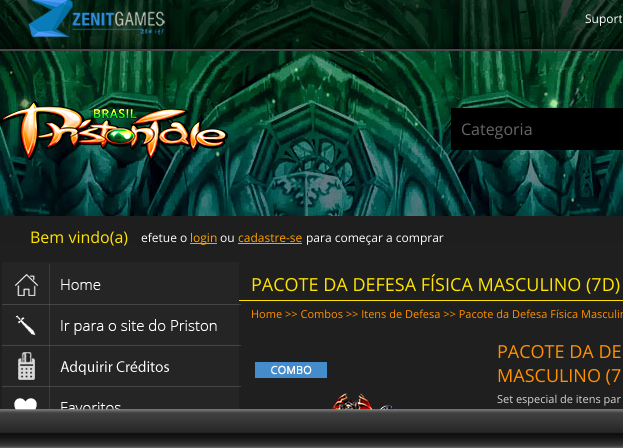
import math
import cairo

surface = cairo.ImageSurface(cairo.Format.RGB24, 623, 448)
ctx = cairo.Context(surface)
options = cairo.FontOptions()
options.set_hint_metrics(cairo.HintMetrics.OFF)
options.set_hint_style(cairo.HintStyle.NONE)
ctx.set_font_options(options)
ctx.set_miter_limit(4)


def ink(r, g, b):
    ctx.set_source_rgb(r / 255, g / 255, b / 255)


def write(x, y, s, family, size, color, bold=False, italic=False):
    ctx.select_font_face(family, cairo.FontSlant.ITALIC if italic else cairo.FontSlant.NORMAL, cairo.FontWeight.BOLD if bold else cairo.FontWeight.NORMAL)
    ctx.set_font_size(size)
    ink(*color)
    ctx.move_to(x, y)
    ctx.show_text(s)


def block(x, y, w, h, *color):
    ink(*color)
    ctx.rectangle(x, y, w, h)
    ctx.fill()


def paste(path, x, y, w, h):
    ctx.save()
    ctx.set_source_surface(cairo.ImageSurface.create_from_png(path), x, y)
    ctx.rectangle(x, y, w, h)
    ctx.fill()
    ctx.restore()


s1 = dict(family="Open Sans", size=12, color=(255, 255, 255))
s2 = dict(family="Open Sans", size=16, color=(102, 102, 102))
s3 = dict(family="Open Sans", size=16, color=(255, 228, 0))
s4 = dict(family="Open Sans", size=12, color=(255, 162, 0))
s5 = dict(family="Open Sans", size=18, color=(255, 228, 0))
s6 = dict(family="Open Sans", size=11, color=(255, 144, 0))
s7 = dict(family="Open Sans", size=18, color=(255, 144, 0))
s8 = dict(family="Open Sans", size=11, color=(212, 212, 212))

ink(255, 255, 255)
ctx.paint()
paste("pic1.png", 0, 0, 623, 410)
paste("pic2.png", 0, 0, 623, 50)
block(0, 50, 623, 1, 70, 70, 70)
paste("pic3.png", 28, 0, 137, 38)
write(585, 23, "Suport", **s1)
paste("pic4.png", 0, 101, 228, 60)
block(451, 108, 172, 42, 0, 0, 0)
write(461, 135, "Categoria", **s2)
block(0, 216, 623, 28, 30, 30, 30)
write(30, 243, "Bem vindo(a)", **s3)
write(141, 242, "efetue o", **s1)
block(190, 243, 27, 1, 255, 162, 0)
write(190, 242, "login", **s4)
write(220, 242, "ou", **s1)
write(238, 242, "cadastre-se", **s4)
write(306, 242, "para começar a comprar", **s1)
block(238, 243, 64, 1, 255, 162, 0)
block(2, 262, 237, 148, 37, 37, 37)
paste("pic5.png", 2, 264, 239, 41)
paste("pic6.png", 2, 305, 239, 41)
paste("pic7.png", 2, 346, 239, 41)
paste("pic8.png", 14, 387, 107, 23)
block(239, 300, 384, 1, 255, 228, 0)
write(251, 291, "PACOTE DA DEFESA FÍSICA MASCULINO (7D)", **s5)
write(251, 318, "Home >> Combos >> Itens de Defesa >> Pacote da Defesa Física Masculin", **s6)
paste("pic9.png", 255, 362, 72, 16)
paste("pic10.png", 331, 393, 64, 17)
write(497, 358, "PACOTE DA DE", **s7)
write(497, 382, "MASCULINO (7", **s7)
write(497, 403, "Set especial de itens par", **s8)
paste("pic11.png", 0, 409, 623, 39)
surface.write_to_png("screenshot.png")
